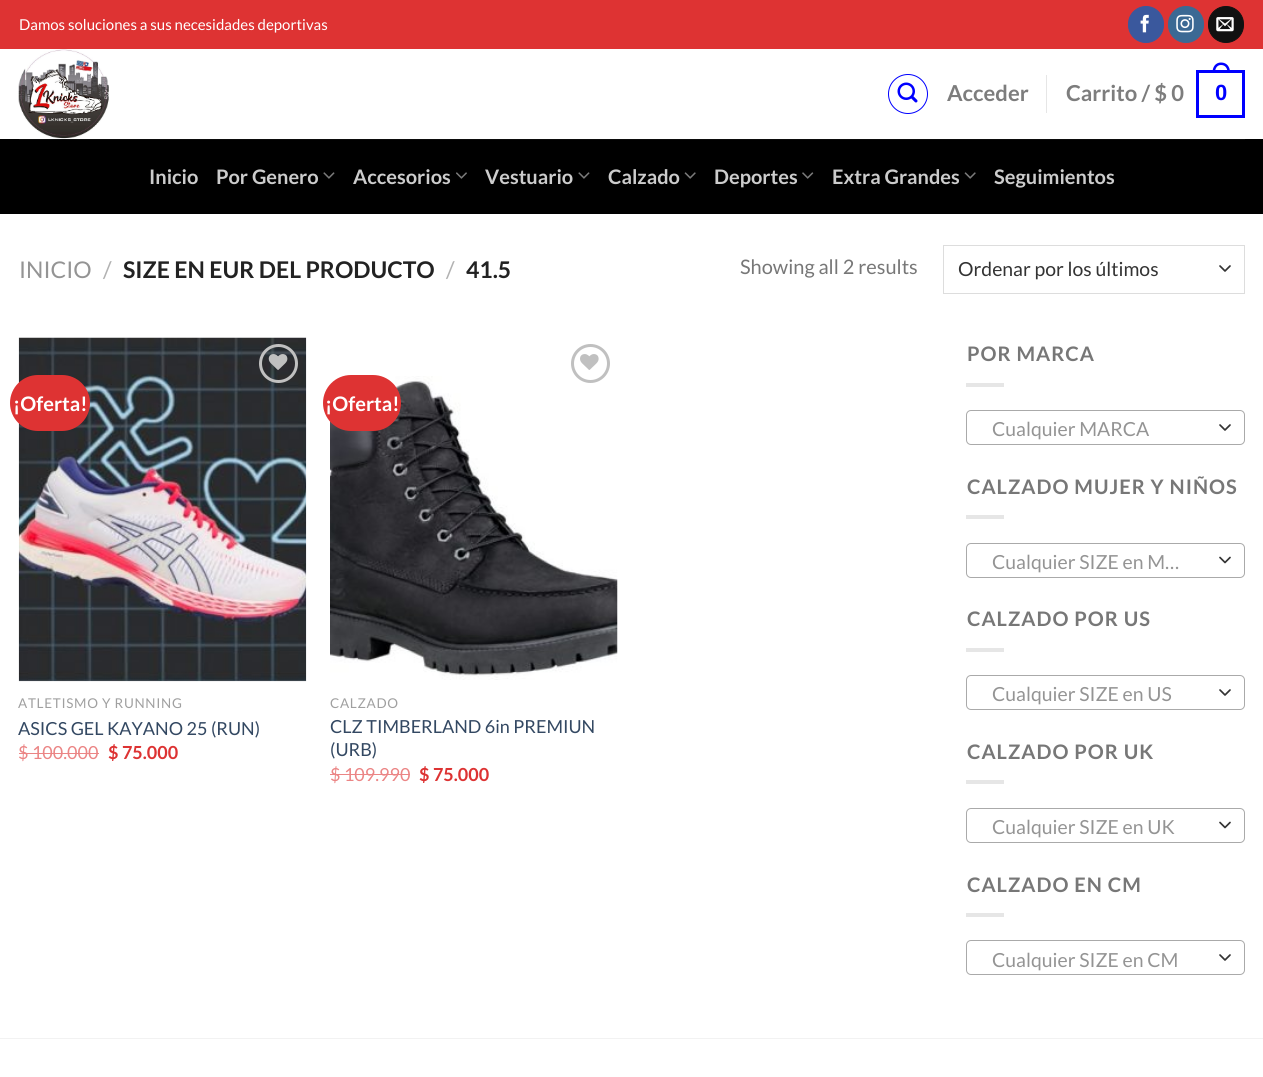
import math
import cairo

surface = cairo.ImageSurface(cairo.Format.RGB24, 1263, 1077)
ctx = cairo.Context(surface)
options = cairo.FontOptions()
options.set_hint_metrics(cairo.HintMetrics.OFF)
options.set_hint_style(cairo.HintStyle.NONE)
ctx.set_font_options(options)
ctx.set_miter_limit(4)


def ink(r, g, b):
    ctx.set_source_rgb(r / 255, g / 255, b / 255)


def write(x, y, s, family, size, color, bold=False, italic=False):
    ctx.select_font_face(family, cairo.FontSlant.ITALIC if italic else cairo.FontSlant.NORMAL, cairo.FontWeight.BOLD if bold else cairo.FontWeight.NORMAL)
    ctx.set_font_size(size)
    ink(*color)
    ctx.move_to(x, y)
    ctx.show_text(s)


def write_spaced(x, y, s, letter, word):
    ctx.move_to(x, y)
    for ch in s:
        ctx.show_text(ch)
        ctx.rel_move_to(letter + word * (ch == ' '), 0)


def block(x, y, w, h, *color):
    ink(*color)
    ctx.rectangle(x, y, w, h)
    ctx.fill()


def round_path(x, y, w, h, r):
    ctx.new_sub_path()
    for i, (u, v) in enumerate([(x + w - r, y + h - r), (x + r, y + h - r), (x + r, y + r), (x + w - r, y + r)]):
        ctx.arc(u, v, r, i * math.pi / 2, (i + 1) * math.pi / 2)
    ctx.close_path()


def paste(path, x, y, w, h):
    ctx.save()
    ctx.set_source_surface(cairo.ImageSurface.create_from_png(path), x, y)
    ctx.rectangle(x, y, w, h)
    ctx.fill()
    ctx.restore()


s1 = dict(family="Lato", size=15, color=(255, 255, 255))
s2 = dict(family="Lato", size=22, color=(125, 125, 125), bold=True)
s3 = dict(family="Liberation Sans", size=22, color=(0, 0, 255), bold=True)
s4 = dict(family="Lato", size=20, color=(204, 204, 204), bold=True)
s5 = dict(family="Lato", size=23, color=(148, 148, 148))
s6 = dict(family="Lato", size=23, color=(178, 178, 178))
s7 = dict(family="Lato", size=23, color=(34, 34, 34), bold=True)
s8 = dict(family="Lato", size=20, color=(119, 119, 119))
s9 = dict(family="Lato", size=19.4, color=(51, 51, 51))
s10 = dict(family="Lato", size=20, color=(255, 255, 255), bold=True)
s11 = dict(family="Lato", size=18, color=(51, 72, 98))
s12 = dict(family="Lato", size=18, color=(235, 133, 133))
s13 = dict(family="Lato", size=18, color=(221, 51, 51), bold=True)
s14 = dict(family="Lato", size=19.4, color=(148, 148, 148))

ink(255, 255, 255)
ctx.paint()
block(0, 0, 1263, 49, 222, 51, 51)
write(19, 30, "Damos soluciones a sus necesidades deportivas", **s1)
ink(58, 88, 157)
round_path(1128.5, 6.5, 35, 36, 17.5)
ctx.fill_preserve()
ctx.set_line_width(1)
ctx.stroke()
paste("pic1.png", 1140, 14, 9, 19)
ink(59, 105, 148)
round_path(1168.5, 6.5, 35, 36, 17.5)
ctx.fill_preserve()
ctx.stroke()
paste("pic2.png", 1176, 14, 18, 19)
ink(17, 17, 17)
round_path(1208.5, 6.5, 35, 36, 17.5)
ctx.fill_preserve()
ctx.stroke()
paste("pic3.png", 1216, 17, 18, 15)
paste("pic4.png", 18, 49, 91, 90)
ctx.arc(908, 94, 19.5, 0, 2 * math.pi)
ink(0, 0, 255)
ctx.stroke()
paste("pic5.png", 897, 82, 21, 21)
write(947, 101, "Acceder", **s2)
block(1046, 75, 1, 38, 230, 230, 230)
write(1066, 101, "Carrito / $ 0", **s2)
ctx.rectangle(1197.5, 71.5, 46, 45)
ink(0, 0, 255)
ctx.set_line_width(3)
ctx.stroke()
ctx.set_fill_rule(cairo.FillRule.EVEN_ODD)
ctx.new_path()
ctx.move_to(1221, 62.5)
ctx.curve_to(1227, 62.5, 1230, 67, 1230, 72.5)
ctx.line_to(1212.5, 72.5)
ctx.curve_to(1212.5, 67, 1215.5, 62.5, 1221, 62.5)
ctx.close_path()
ctx.move_to(1221, 65)
ctx.curve_to(1225.5, 65, 1227.5, 68.5, 1227.5, 72.5)
ctx.line_to(1215, 72.5)
ctx.curve_to(1215, 68.5, 1217, 65, 1221, 65)
ctx.close_path()
ctx.fill()
write(1215, 100, "0", **s3)
block(0, 139, 1263, 75, 0, 0, 0)
block(19, 139, 1226, 1, 12, 12, 12)
write(149, 184, "Inicio", **s4)
write(216, 184, "Por Genero", **s4)
paste("pic6.png", 323, 172, 12, 7)
write(353, 184, "Accesorios", **s4)
paste("pic7.png", 456, 172, 11, 7)
write(485, 184, "Vestuario", **s4)
paste("pic6.png", 578, 172, 12, 7)
write(608, 184, "Calzado", **s4)
paste("pic8.png", 684, 172, 12, 7)
write(714, 184, "Deportes", **s4)
paste("pic9.png", 802, 172, 12, 7)
write(832, 184, "Extra Grandes", **s4)
paste("pic8.png", 964, 172, 12, 7)
write(994, 184, "Seguimientos", **s4)
write(19, 278, "INICIO", **s5)
write(103, 278, "/", **s6)
write(123, 278, "SIZE EN EUR DEL PRODUCTO", **s7)
write(446, 278, "/", **s6)
write(466, 278, "41.5", **s7)
write(740, 274, "Showing all 2 results", **s8)
ctx.new_path()
ctx.move_to(1220, 266)
ctx.line_to(1225, 271)
ctx.line_to(1230, 266)
ink(51, 51, 51)
ctx.set_line_width(1.7)
ctx.set_line_cap(cairo.LineCap.ROUND)
ctx.set_line_join(cairo.LineJoin.ROUND)
ctx.stroke()
ctx.rectangle(943.5, 245.5, 301, 48)
ink(221, 221, 221)
ctx.set_line_width(1)
ctx.set_line_cap(cairo.LineCap.BUTT)
ctx.set_line_join(cairo.LineJoin.MITER)
ctx.stroke()
write(958, 276, "Ordenar por los últimos", **s9)
paste("pic10.png", 18, 337, 289, 345)
ink(222, 51, 51)
round_path(10, 375, 80, 56, 28)
ctx.fill()
write(13, 411, "¡Oferta!", **s10)
ctx.new_path()
ctx.arc(278.5, 363.5, 18, 0, 2 * math.pi)
ink(192, 192, 192)
ctx.set_line_width(3)
ctx.stroke()
paste("pic11.png", 268, 354, 20, 16)
ctx.select_font_face("Lato")
ctx.set_font_size(13.5)
ink(160, 160, 160)
write_spaced(18, 708, "ATLETISMO Y RUNNING", 0.7, 0)
write(18, 735, "ASICS GEL KAYANO 25 (RUN)", **s11)
write(18, 759, "$ 100.000", **s12)
block(19, 753, 80, 1, 235, 133, 133)
write(108, 759, "$ 75.000", **s13)
paste("pic13.png", 330, 376, 288, 304)
ink(222, 51, 51)
round_path(323, 375, 78, 56, 28)
ctx.fill()
write(325, 411, "¡Oferta!", **s10)
ctx.new_path()
ctx.arc(590.5, 363.5, 18, 0, 2 * math.pi)
ink(192, 192, 192)
ctx.stroke()
paste("pic12.png", 580, 354, 19, 16)
ctx.select_font_face("Lato")
ctx.set_font_size(13.5)
ink(160, 160, 160)
write_spaced(330, 708, "CALZADO", 0.7, 0)
write(330, 733, "CLZ TIMBERLAND 6in PREMIUN", **s11)
write(330, 756, "(URB)", **s11)
write(330, 781, "$ 109.990", **s12)
block(330, 774, 80, 1, 235, 133, 133)
write(419, 781, "$ 75.000", **s13)
ctx.set_font_size(20)
ink(119, 119, 119)
write_spaced(967, 361, "POR MARCA", 1, 0)
block(966, 383, 38, 4, 230, 230, 230)
ctx.new_path()
ctx.move_to(1220, 425)
ctx.line_to(1225, 430)
ctx.line_to(1230, 425)
ink(51, 51, 51)
ctx.set_line_width(1.7)
ctx.set_line_cap(cairo.LineCap.ROUND)
ctx.set_line_join(cairo.LineJoin.ROUND)
ctx.stroke()
round_path(966.5, 410.5, 278, 34, 4.5)
ink(170, 170, 170)
ctx.set_line_width(1)
ctx.set_line_cap(cairo.LineCap.BUTT)
ctx.set_line_join(cairo.LineJoin.MITER)
ctx.stroke()
write(992, 436, "Cualquier MARCA", **s14)
ctx.select_font_face("Lato", cairo.FontSlant.NORMAL, cairo.FontWeight.BOLD)
ctx.set_font_size(20)
ink(119, 119, 119)
write_spaced(967, 494, "CALZADO MUJER Y NIÑOS", 1, 0)
block(966, 515, 38, 4, 230, 230, 230)
ctx.new_path()
ctx.move_to(1220, 557.5)
ctx.line_to(1225, 562.5)
ctx.line_to(1230, 557.5)
ink(51, 51, 51)
ctx.set_line_width(1.7)
ctx.set_line_cap(cairo.LineCap.ROUND)
ctx.set_line_join(cairo.LineJoin.ROUND)
ctx.stroke()
round_path(966.5, 543.5, 278, 34, 4.5)
ink(170, 170, 170)
ctx.set_line_width(1)
ctx.set_line_cap(cairo.LineCap.BUTT)
ctx.set_line_join(cairo.LineJoin.MITER)
ctx.stroke()
write(992, 569, "Cualquier SIZE en M…", **s14)
ctx.select_font_face("Lato", cairo.FontSlant.NORMAL, cairo.FontWeight.BOLD)
ctx.set_font_size(20)
ink(119, 119, 119)
write_spaced(967, 626, "CALZADO POR US", 1, 0)
block(966, 648, 38, 4, 230, 230, 230)
ctx.new_path()
ctx.move_to(1220, 690)
ctx.line_to(1225, 695)
ctx.line_to(1230, 690)
ink(51, 51, 51)
ctx.set_line_width(1.7)
ctx.set_line_cap(cairo.LineCap.ROUND)
ctx.set_line_join(cairo.LineJoin.ROUND)
ctx.stroke()
round_path(966.5, 675.5, 278, 34, 4.5)
ink(170, 170, 170)
ctx.set_line_width(1)
ctx.set_line_cap(cairo.LineCap.BUTT)
ctx.set_line_join(cairo.LineJoin.MITER)
ctx.stroke()
write(992, 701, "Cualquier SIZE en US", **s14)
ctx.select_font_face("Lato", cairo.FontSlant.NORMAL, cairo.FontWeight.BOLD)
ctx.set_font_size(20)
ink(119, 119, 119)
write_spaced(967, 759, "CALZADO POR UK", 1, 0)
block(966, 780, 38, 4, 230, 230, 230)
ctx.new_path()
ctx.move_to(1220, 822.5)
ctx.line_to(1225, 827.5)
ctx.line_to(1230, 822.5)
ink(51, 51, 51)
ctx.set_line_width(1.7)
ctx.set_line_cap(cairo.LineCap.ROUND)
ctx.set_line_join(cairo.LineJoin.ROUND)
ctx.stroke()
round_path(966.5, 808.5, 278, 34, 4.5)
ink(170, 170, 170)
ctx.set_line_width(1)
ctx.set_line_cap(cairo.LineCap.BUTT)
ctx.set_line_join(cairo.LineJoin.MITER)
ctx.stroke()
write(992, 834, "Cualquier SIZE en UK", **s14)
ctx.select_font_face("Lato", cairo.FontSlant.NORMAL, cairo.FontWeight.BOLD)
ctx.set_font_size(20)
ink(119, 119, 119)
write_spaced(967, 892, "CALZADO EN CM", 1, 0)
block(966, 913, 38, 4, 230, 230, 230)
ctx.new_path()
ctx.move_to(1220, 955)
ctx.line_to(1225, 960)
ctx.line_to(1230, 955)
ink(51, 51, 51)
ctx.set_line_width(1.7)
ctx.set_line_cap(cairo.LineCap.ROUND)
ctx.set_line_join(cairo.LineJoin.ROUND)
ctx.stroke()
round_path(966.5, 940.5, 278, 34, 4.5)
ink(170, 170, 170)
ctx.set_line_width(1)
ctx.set_line_cap(cairo.LineCap.BUTT)
ctx.set_line_join(cairo.LineJoin.MITER)
ctx.stroke()
write(992, 967, "Cualquier SIZE en CM", **s14)
block(0, 1038, 1263, 1, 242, 242, 242)
surface.write_to_png("screenshot.png")
